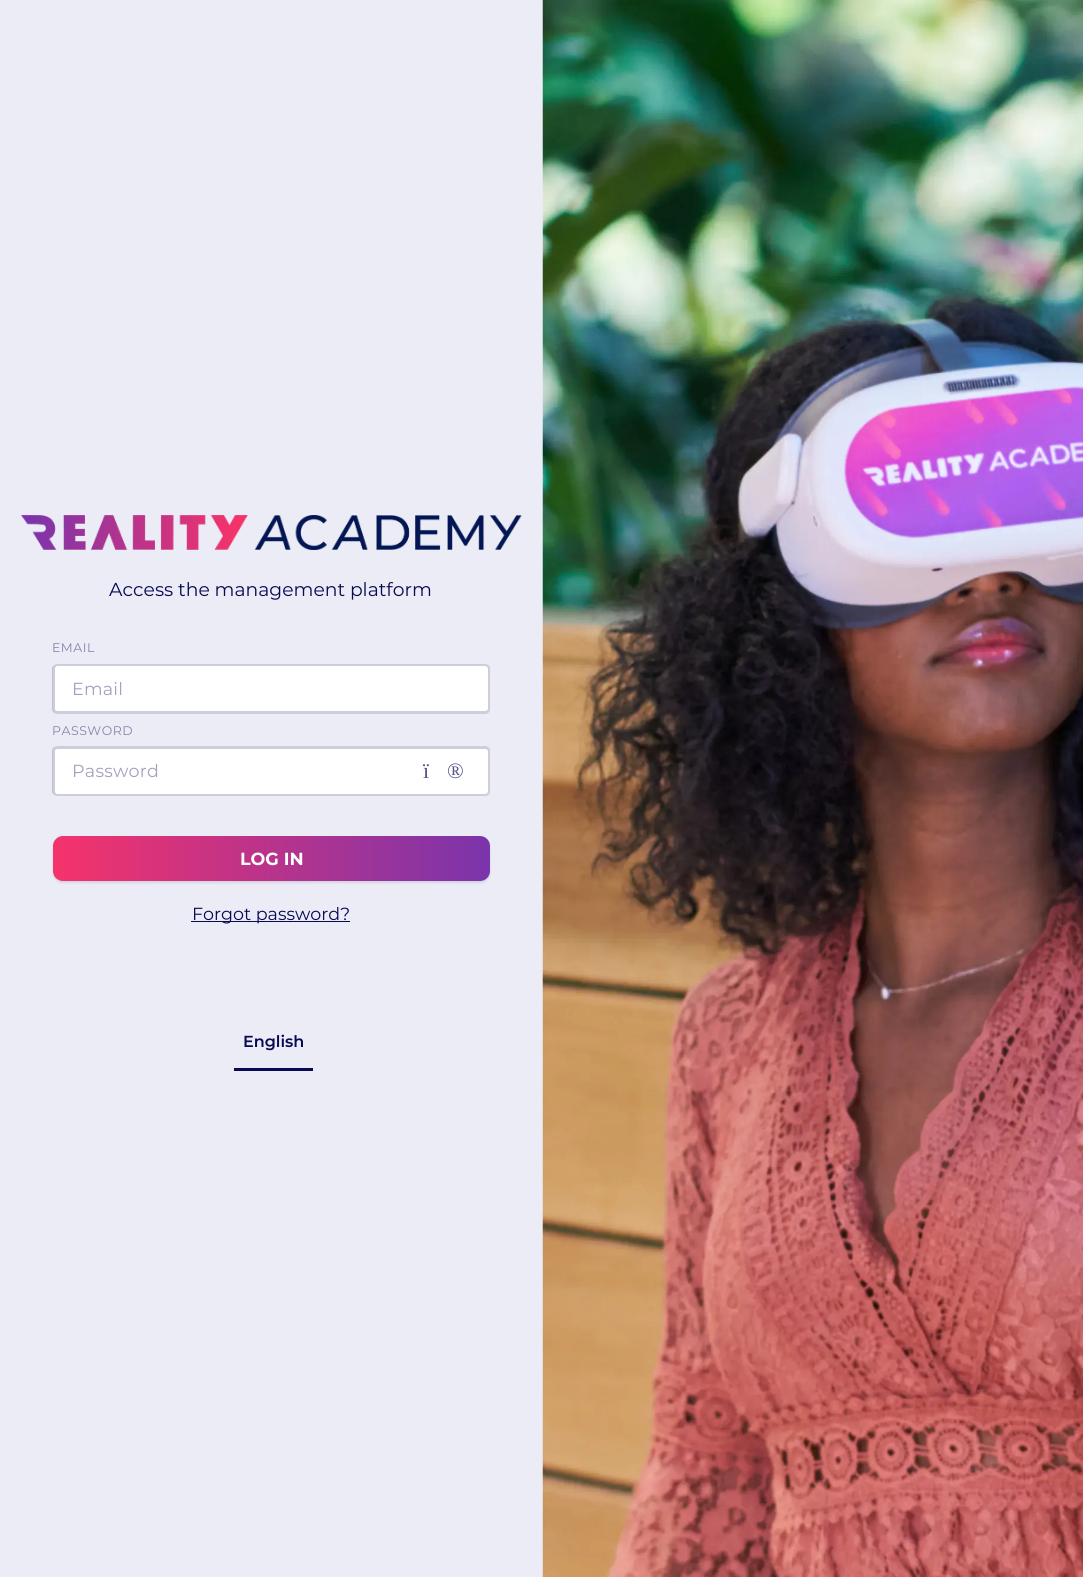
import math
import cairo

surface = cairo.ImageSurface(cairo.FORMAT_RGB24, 1083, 1577)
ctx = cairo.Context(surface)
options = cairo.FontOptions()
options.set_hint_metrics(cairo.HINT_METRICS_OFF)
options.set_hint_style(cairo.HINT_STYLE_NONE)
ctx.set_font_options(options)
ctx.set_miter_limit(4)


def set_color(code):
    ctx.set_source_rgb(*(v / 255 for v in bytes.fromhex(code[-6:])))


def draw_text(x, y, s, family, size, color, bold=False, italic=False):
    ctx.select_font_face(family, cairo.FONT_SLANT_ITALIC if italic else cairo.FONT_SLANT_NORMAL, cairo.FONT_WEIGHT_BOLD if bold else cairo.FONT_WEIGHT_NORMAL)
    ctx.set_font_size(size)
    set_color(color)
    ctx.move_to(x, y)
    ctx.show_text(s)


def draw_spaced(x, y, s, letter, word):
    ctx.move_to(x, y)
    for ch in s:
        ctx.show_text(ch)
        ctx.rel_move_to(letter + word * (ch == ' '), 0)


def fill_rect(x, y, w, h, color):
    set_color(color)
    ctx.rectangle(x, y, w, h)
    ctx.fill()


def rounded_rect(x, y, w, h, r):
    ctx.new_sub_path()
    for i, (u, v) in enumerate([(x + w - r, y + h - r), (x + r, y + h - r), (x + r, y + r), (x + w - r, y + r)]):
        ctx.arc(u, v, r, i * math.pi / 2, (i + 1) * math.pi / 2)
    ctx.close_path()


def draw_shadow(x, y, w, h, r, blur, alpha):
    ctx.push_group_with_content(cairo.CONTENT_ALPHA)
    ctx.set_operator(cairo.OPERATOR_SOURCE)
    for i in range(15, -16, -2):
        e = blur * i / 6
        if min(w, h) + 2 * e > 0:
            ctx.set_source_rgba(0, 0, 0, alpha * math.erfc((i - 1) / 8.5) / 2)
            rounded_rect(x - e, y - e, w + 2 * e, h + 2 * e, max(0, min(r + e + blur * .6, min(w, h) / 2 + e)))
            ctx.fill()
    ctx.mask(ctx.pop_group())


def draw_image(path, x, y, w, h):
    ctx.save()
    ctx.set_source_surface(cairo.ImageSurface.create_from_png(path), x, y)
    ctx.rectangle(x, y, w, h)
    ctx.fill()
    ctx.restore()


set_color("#ececf7")
ctx.paint()
draw_image("assets/img1.png", 21, 515, 501, 35)
draw_text(109, 596, "Access the management platform", "Montserrat", 18.75, "#090954")
ctx.set_font_size(12.5)
set_color("#8484aa")
draw_spaced(52, 652, "EMAIL", 0.5, 0)
set_color("#ffffff")
rounded_rect(53, 664, 437, 50, 5)
ctx.fill()
ctx.set_source_rgba(0.035, 0.035, 0.329, 0.2)
ctx.set_fill_rule(cairo.FILL_RULE_EVEN_ODD)
ctx.new_path()
ctx.move_to(58, 664)
ctx.line_to(68, 664)
ctx.line_to(68, 714)
ctx.line_to(58, 714)
ctx.curve_to(55, 714, 52, 712, 52, 709)
ctx.line_to(52, 669)
ctx.curve_to(52, 666, 55, 664, 58, 664)
ctx.close_path()
ctx.move_to(58, 666)
ctx.line_to(68, 666)
ctx.line_to(68, 711)
ctx.line_to(58, 711)
ctx.curve_to(56, 711, 55, 710, 55, 709)
ctx.line_to(55, 669)
ctx.curve_to(55, 667, 56, 666, 58, 666)
ctx.close_path()
ctx.fill()
ctx.set_font_size(17.5)
set_color("#a2a2be")
draw_spaced(72, 695, "Email", 0.25, 0)
ctx.set_source_rgba(0.035, 0.035, 0.329, 0.2)
ctx.new_path()
ctx.move_to(68, 664)
ctx.line_to(485, 664)
ctx.curve_to(488, 664, 490, 666, 490, 669)
ctx.line_to(490, 709)
ctx.curve_to(490, 712, 488, 714, 485, 714)
ctx.line_to(68, 714)
ctx.close_path()
ctx.move_to(68, 666)
ctx.line_to(485, 666)
ctx.curve_to(486, 666, 488, 667, 488, 669)
ctx.line_to(488, 709)
ctx.curve_to(488, 710, 486, 711, 485, 711)
ctx.line_to(68, 711)
ctx.close_path()
ctx.fill()
ctx.set_font_size(12.5)
set_color("#8484aa")
draw_spaced(52, 735, "PASSWORD", 0.5, 0)
set_color("#ffffff")
rounded_rect(53, 746, 437, 50, 5)
ctx.fill()
ctx.set_source_rgba(0.035, 0.035, 0.329, 0.2)
ctx.new_path()
ctx.move_to(58, 746)
ctx.line_to(68, 746)
ctx.line_to(68, 796)
ctx.line_to(58, 796)
ctx.curve_to(55, 796, 52, 794, 52, 791)
ctx.line_to(52, 751)
ctx.curve_to(52, 748, 55, 746, 58, 746)
ctx.close_path()
ctx.move_to(58, 749)
ctx.line_to(68, 749)
ctx.line_to(68, 794)
ctx.line_to(58, 794)
ctx.curve_to(56, 794, 55, 793, 55, 791)
ctx.line_to(55, 751)
ctx.curve_to(55, 750, 56, 749, 58, 749)
ctx.close_path()
ctx.fill()
ctx.set_font_size(17.5)
set_color("#a2a2be")
draw_spaced(72, 777, "Password", 0.25, 0)
draw_text(423, 778, "ï", "Liberation Serif", 22, "#535387")
draw_text(447, 778, "®", "Liberation Serif", 22, "#535387")
ctx.set_source_rgba(0.035, 0.035, 0.329, 0.2)
ctx.new_path()
ctx.move_to(68, 746)
ctx.line_to(485, 746)
ctx.curve_to(488, 746, 490, 748, 490, 751)
ctx.line_to(490, 791)
ctx.curve_to(490, 794, 488, 796, 485, 796)
ctx.line_to(68, 796)
ctx.close_path()
ctx.move_to(68, 749)
ctx.line_to(485, 749)
ctx.curve_to(486, 749, 488, 750, 488, 751)
ctx.line_to(488, 791)
ctx.curve_to(488, 793, 486, 794, 485, 794)
ctx.line_to(68, 794)
ctx.close_path()
ctx.fill()
set_color("#1b242c")
draw_shadow(53, 838, 437, 45, 10, 1, 0.12)
gradient = cairo.LinearGradient(53, 859, 490, 859)
gradient.add_color_stop_rgba(0, 0.961, 0.2, 0.42, 1)
gradient.add_color_stop_rgba(1, 0.482, 0.204, 0.671, 1)
ctx.set_source(gradient)
rounded_rect(53, 836, 437, 45, 10)
ctx.fill()
draw_text(240, 865, "LOG IN", "Montserrat", 17.5, "#ffffff", bold=True)
fill_rect(191, 921, 159, 1, "#090954")
draw_text(192, 920, "Forgot password?", "Montserrat", 17.5, "#090954")
draw_text(243, 1047, "English", "Montserrat SemiBold", 16, "#090954")
fill_rect(234, 1068, 79, 3, "#090954")
draw_image("assets/img2.png", 542, 0, 541, 1577)
surface.write_to_png("output.png")
